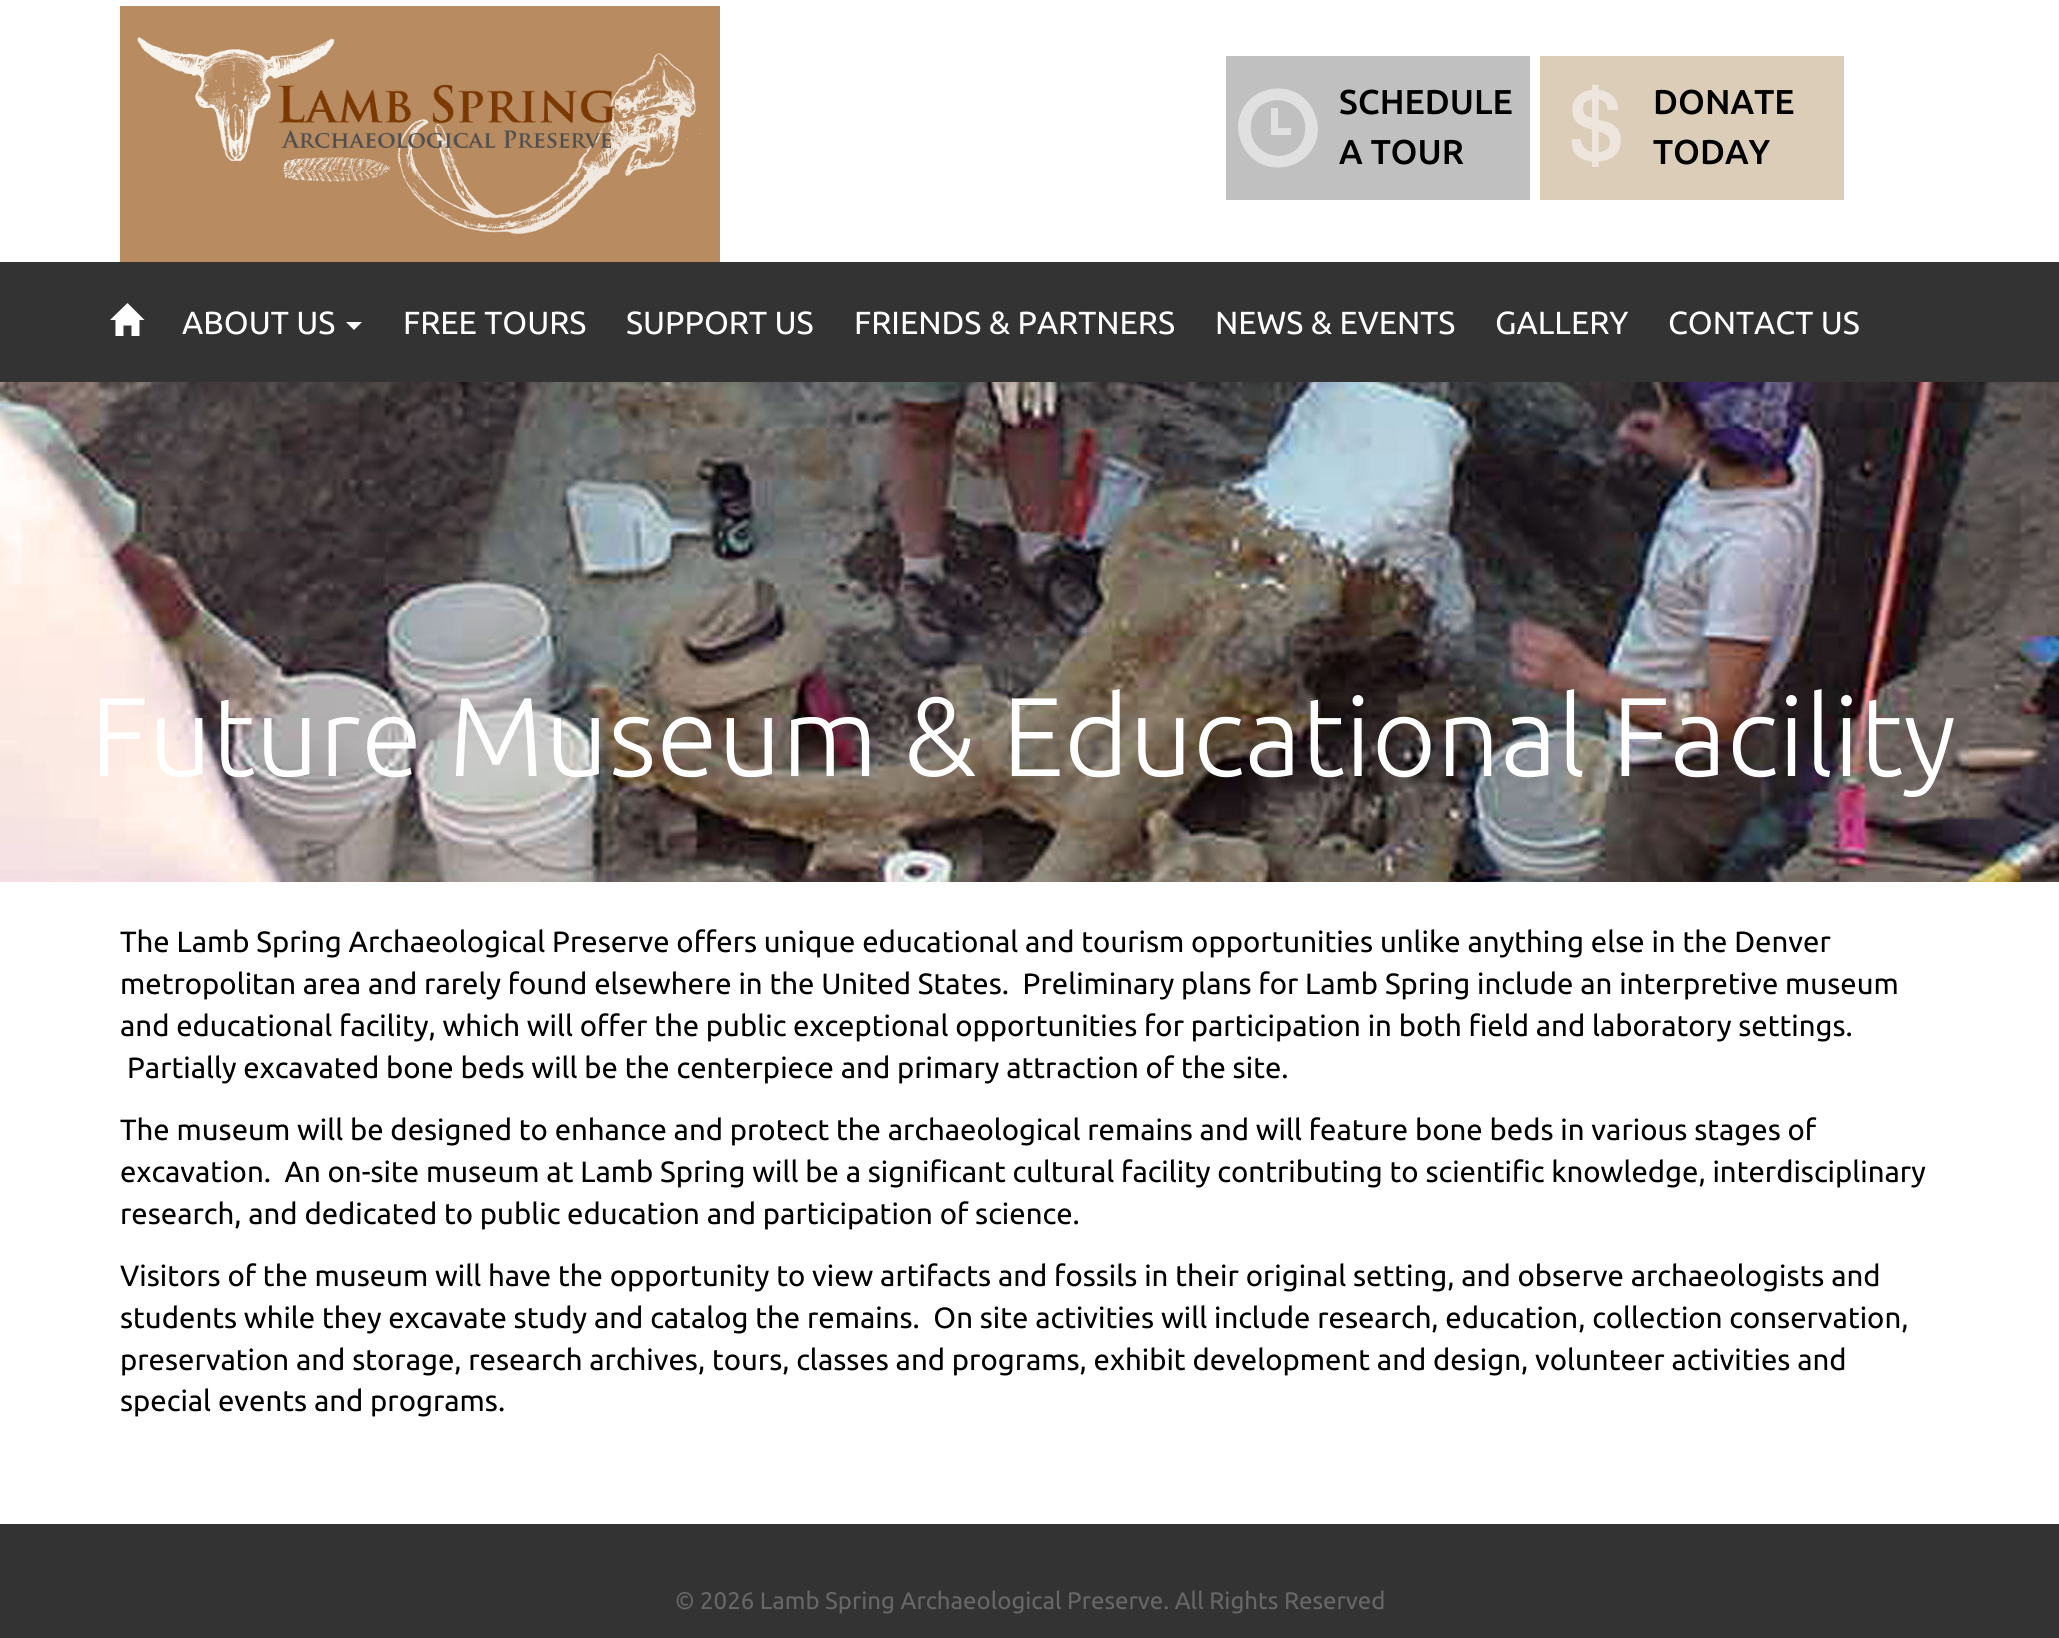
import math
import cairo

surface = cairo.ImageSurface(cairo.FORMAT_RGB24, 2059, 1638)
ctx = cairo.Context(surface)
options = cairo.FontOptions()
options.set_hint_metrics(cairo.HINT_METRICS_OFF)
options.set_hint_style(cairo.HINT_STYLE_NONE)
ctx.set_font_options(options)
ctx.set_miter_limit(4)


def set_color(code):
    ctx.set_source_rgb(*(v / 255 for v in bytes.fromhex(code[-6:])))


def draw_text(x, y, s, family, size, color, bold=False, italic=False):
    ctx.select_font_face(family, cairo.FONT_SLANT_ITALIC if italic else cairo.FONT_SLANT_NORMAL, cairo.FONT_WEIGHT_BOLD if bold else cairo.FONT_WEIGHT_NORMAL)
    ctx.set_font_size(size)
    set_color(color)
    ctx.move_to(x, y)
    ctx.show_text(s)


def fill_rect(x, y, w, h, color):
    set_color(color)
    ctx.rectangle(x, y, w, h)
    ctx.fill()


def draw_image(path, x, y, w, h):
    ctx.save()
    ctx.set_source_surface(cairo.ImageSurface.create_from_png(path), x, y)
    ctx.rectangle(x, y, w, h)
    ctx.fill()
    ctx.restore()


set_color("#ffffff")
ctx.paint()
draw_image("assets/img1.png", 120, 6, 600, 256)
fill_rect(1226, 56, 304, 144, "#c0c0c1")
set_color("#e0e0e0")
ctx.new_path()
ctx.move_to(1244, 148)
ctx.curve_to(1240, 141, 1238, 133, 1238, 125)
ctx.curve_to(1241, 86, 1293, 75, 1312, 108)
ctx.curve_to(1316, 115, 1318, 123, 1318, 131)
ctx.curve_to(1315, 170, 1263, 181, 1244, 148)
ctx.close_path()
ctx.move_to(1258, 108)
ctx.curve_to(1254, 113, 1251, 119, 1251, 125)
ctx.curve_to(1248, 151, 1279, 166, 1298, 148)
ctx.curve_to(1302, 143, 1305, 137, 1305, 131)
ctx.curve_to(1308, 105, 1277, 90, 1258, 108)
ctx.close_path()
ctx.move_to(1271, 135)
ctx.line_to(1271, 108)
ctx.line_to(1278, 108)
ctx.line_to(1278, 128)
ctx.line_to(1291, 128)
ctx.line_to(1291, 135)
ctx.close_path()
ctx.fill()
draw_text(1339, 114, "SCHEDULE", "Ubuntu Medium", 34.5, "#000000")
draw_text(1339, 164, "A TOUR", "Ubuntu Medium", 34.5, "#000000")
fill_rect(1540, 56, 304, 144, "#dccdb9")
draw_image("assets/img2.png", 1571, 84, 50, 83)
draw_text(1653, 114, "DONATE", "Ubuntu Medium", 34.5, "#000000")
draw_text(1653, 164, "TODAY", "Ubuntu Medium", 34.5, "#000000")
fill_rect(0, 262, 2059, 120, "#333333")
set_color("#ffffff")
ctx.new_path()
ctx.move_to(110, 320)
ctx.line_to(127.5, 303)
ctx.line_to(144.5, 320)
ctx.line_to(139.5, 320)
ctx.line_to(139.5, 336)
ctx.line_to(131.5, 336)
ctx.line_to(131.5, 325.5)
ctx.line_to(123.5, 325.5)
ctx.line_to(123.5, 336)
ctx.line_to(115.5, 336)
ctx.line_to(115.5, 320)
ctx.close_path()
ctx.fill()
draw_text(182, 334, "ABOUT US", "Ubuntu", 32, "#ffffff")
ctx.new_path()
ctx.move_to(346, 322)
ctx.line_to(362, 322)
ctx.line_to(354, 330)
ctx.close_path()
ctx.fill()
draw_text(403, 334, "FREE TOURS", "Ubuntu", 32, "#ffffff")
draw_text(626, 334, "SUPPORT US", "Ubuntu", 32, "#ffffff")
draw_text(854, 334, "FRIENDS & PARTNERS", "Ubuntu", 32, "#ffffff")
draw_text(1215, 334, "NEWS & EVENTS", "Ubuntu", 32, "#ffffff")
draw_text(1495, 334, "GALLERY", "Ubuntu", 32, "#ffffff")
draw_text(1668, 334, "CONTACT US", "Ubuntu", 32, "#ffffff")
draw_image("assets/img3.png", 0, 382, 2059, 500)
draw_text(90, 776, "Future Museum & Educational Facility", "Ubuntu Light", 112, "#ffffff")
draw_text(120, 952, "The Lamb Spring Archaeological Preserve offers unique educational and tourism opportunities unlike anything else in the Denver", "Ubuntu", 29.33, "#000000")
draw_text(120, 994, "metropolitan area and rarely found elsewhere in the United States.  Preliminary plans for Lamb Spring include an interpretive museum", "Ubuntu", 29.33, "#000000")
draw_text(120, 1036, "and educational facility, which will offer the public exceptional opportunities for participation in both field and laboratory settings.", "Ubuntu", 29.33, "#000000")
draw_text(127, 1078, "Partially excavated bone beds will be the centerpiece and primary attraction of the site.", "Ubuntu", 29.33, "#000000")
draw_text(120, 1140, "The museum will be designed to enhance and protect the archaeological remains and will feature bone beds in various stages of", "Ubuntu", 29.33, "#000000")
draw_text(120, 1182, "excavation.  An on-site museum at Lamb Spring will be a significant cultural facility contributing to scientific knowledge, interdisciplinary", "Ubuntu", 29.33, "#000000")
draw_text(120, 1224, "research, and dedicated to public education and participation of science.", "Ubuntu", 29.33, "#000000")
draw_text(120, 1286, "Visitors of the museum will have the opportunity to view artifacts and fossils in their original setting, and observe archaeologists and", "Ubuntu", 29.33, "#000000")
draw_text(120, 1328, "students while they excavate study and catalog the remains.  On site activities will include research, education, collection conservation,", "Ubuntu", 29.33, "#000000")
draw_text(120, 1370, "preservation and storage, research archives, tours, classes and programs, exhibit development and design, volunteer activities and", "Ubuntu", 29.33, "#000000")
draw_text(120, 1411, "special events and programs.", "Ubuntu", 29.33, "#000000")
fill_rect(0, 1524, 2059, 114, "#333333")
draw_text(675, 1609, "© 2026 Lamb Spring Archaeological Preserve. All Rights Reserved", "Ubuntu", 24, "#676767")
surface.write_to_png("output.png")
